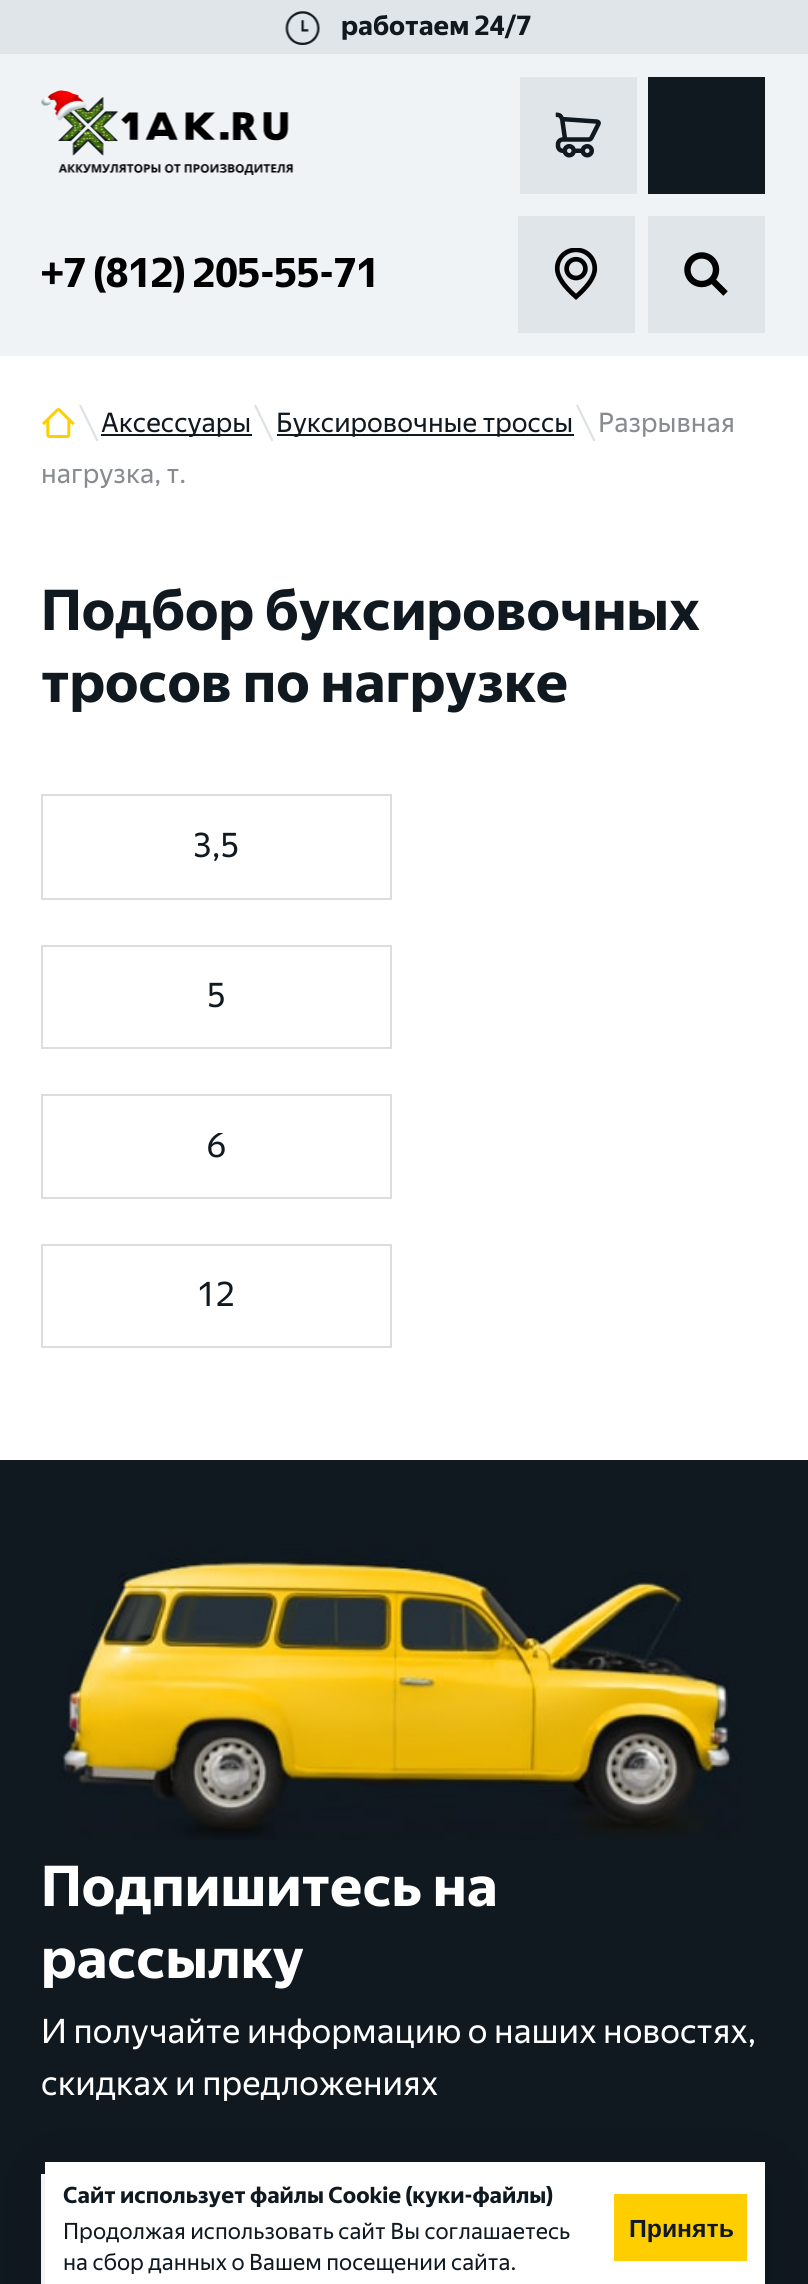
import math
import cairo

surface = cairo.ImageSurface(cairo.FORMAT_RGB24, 808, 2284)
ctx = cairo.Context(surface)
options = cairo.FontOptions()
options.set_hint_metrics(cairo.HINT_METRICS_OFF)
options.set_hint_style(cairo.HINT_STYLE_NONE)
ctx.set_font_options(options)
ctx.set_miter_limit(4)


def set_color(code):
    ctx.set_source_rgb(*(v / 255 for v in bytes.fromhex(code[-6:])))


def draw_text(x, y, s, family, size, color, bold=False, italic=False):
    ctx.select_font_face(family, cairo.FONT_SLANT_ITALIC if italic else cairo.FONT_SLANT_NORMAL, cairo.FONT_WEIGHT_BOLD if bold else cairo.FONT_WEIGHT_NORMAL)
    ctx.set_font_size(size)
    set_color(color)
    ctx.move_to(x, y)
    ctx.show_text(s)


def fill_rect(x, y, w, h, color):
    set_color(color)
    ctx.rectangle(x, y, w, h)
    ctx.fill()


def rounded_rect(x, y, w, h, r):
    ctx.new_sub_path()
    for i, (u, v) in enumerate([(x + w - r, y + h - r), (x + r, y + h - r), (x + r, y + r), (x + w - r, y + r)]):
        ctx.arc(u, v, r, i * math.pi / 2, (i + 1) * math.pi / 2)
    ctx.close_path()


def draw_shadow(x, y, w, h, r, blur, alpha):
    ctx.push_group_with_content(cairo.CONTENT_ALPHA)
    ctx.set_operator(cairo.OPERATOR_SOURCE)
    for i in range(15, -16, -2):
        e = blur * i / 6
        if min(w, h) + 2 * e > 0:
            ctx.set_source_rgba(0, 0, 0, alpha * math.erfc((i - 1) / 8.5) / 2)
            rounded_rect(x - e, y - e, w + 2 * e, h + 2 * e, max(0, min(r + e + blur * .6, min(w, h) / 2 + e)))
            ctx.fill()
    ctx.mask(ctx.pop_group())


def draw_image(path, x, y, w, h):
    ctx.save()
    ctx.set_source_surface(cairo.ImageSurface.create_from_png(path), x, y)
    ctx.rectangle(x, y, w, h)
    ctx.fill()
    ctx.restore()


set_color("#ffffff")
ctx.paint()
fill_rect(0, 54, 808, 302, "#f0f3f6")
fill_rect(0, 0, 808, 54, "#dfe5e9")
draw_image("assets/img1.png", 285, 11, 35, 34)
draw_text(341, 35, "работаем 24/7", "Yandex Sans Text", 27, "#101820", bold=True)
draw_image("assets/img2.png", 41, 90, 253, 85)
fill_rect(520, 77, 117, 117, "#dfe5e9")
draw_image("assets/img3.png", 555, 112, 46, 46)
fill_rect(648, 77, 117, 117, "#101820")
draw_text(41, 287, "+7 (812) 205-55-71", "Yandex Sans Text", 40.5, "#000000", bold=True)
fill_rect(518, 216, 117, 117, "#dfe5e9")
draw_image("assets/img4.png", 554, 248, 44, 52)
fill_rect(648, 216, 117, 117, "#dfe5e9")
draw_image("assets/img5.png", 684, 252, 44, 44)
draw_image("assets/img6.png", 42, 408, 33, 30)
set_color("#dde2e5")
ctx.new_path()
ctx.move_to(79, 405.5)
ctx.line_to(81, 404.5)
ctx.line_to(98.5, 440.5)
ctx.line_to(96.5, 441.5)
ctx.close_path()
ctx.fill()
fill_rect(101, 434, 151, 2, "#101820")
draw_text(101, 432, "Аксессуары", "Yandex Sans Text", 27, "#101820")
set_color("#dde2e5")
ctx.new_path()
ctx.move_to(254, 405.5)
ctx.line_to(256, 404.5)
ctx.line_to(273.5, 440.5)
ctx.line_to(271.5, 441.5)
ctx.close_path()
ctx.fill()
fill_rect(277, 434, 297, 2, "#101820")
draw_text(276, 432, "Буксировочные троссы", "Yandex Sans Text", 27, "#101820")
set_color("#dde2e5")
ctx.new_path()
ctx.move_to(576, 405.5)
ctx.line_to(578, 404.5)
ctx.line_to(595.5, 440.5)
ctx.line_to(593.5, 441.5)
ctx.close_path()
ctx.fill()
draw_text(598, 432, "Разрывная", "Yandex Sans Text", 27, "#888c90")
draw_text(41, 483, "нагрузка, т.", "Yandex Sans Text", 27, "#888c90")
draw_text(41, 630, "Подбор буксировочных", "Yandex Sans Text", 56.25, "#101820", bold=True)
draw_text(41, 702, "тросов по нагрузке", "Yandex Sans Text", 56.25, "#101820", bold=True)
ctx.rectangle(42, 795, 349, 104)
set_color("#dddddd")
ctx.stroke()
draw_text(193, 857, "3,5", "Yandex Sans Text", 33.75, "#101820")
ctx.rectangle(42, 946, 349, 102)
set_color("#dddddd")
ctx.stroke()
draw_text(207, 1007, "5", "Yandex Sans Text", 33.75, "#101820")
ctx.rectangle(42, 1095, 349, 103)
set_color("#dddddd")
ctx.stroke()
draw_text(207, 1157, "6", "Yandex Sans Text", 33.75, "#101820")
ctx.rectangle(42, 1245, 349, 102)
set_color("#dddddd")
ctx.stroke()
draw_text(197, 1306, "12", "Yandex Sans Text", 33.75, "#101820")
fill_rect(0, 1460, 808, 824, "#101820")
draw_image("assets/img7.png", 58, 1546, 684, 294)
draw_text(41, 1906, "Подпишитесь на", "Yandex Sans Text", 56.25, "#ffffff", bold=True)
draw_text(41, 1978, "рассылку", "Yandex Sans Text", 56.25, "#ffffff", bold=True)
draw_text(41, 2043, "И получайте информацию о наших новостях,", "Yandex Sans Text", 33.75, "#ffffff")
draw_text(41, 2095, "скидках и предложениях", "Yandex Sans Text", 33.75, "#ffffff")
fill_rect(41, 2174, 4, 110, "#ffffff")
set_color("#000000")
draw_shadow(45, 2171, 720, 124, 0, 36, 0.1)
fill_rect(45, 2162, 720, 122, "#ffffff")
draw_text(63, 2203, "Сайт использует файлы Cookie (куки-файлы)", "Yandex Sans Text", 22.5, "#101820", bold=True)
draw_text(63, 2239, "Продолжая использовать сайт Вы соглашаетесь", "Yandex Sans Text", 22.5, "#101820")
draw_text(63, 2270, "на сбор данных о Вашем посещении сайта.", "Yandex Sans Text", 22.5, "#101820")
fill_rect(614, 2194, 133, 67, "#ffce00")
draw_text(629, 2237, "Принять", "Liberation Sans", 24.75, "#101820", bold=True)
surface.write_to_png("output.png")
